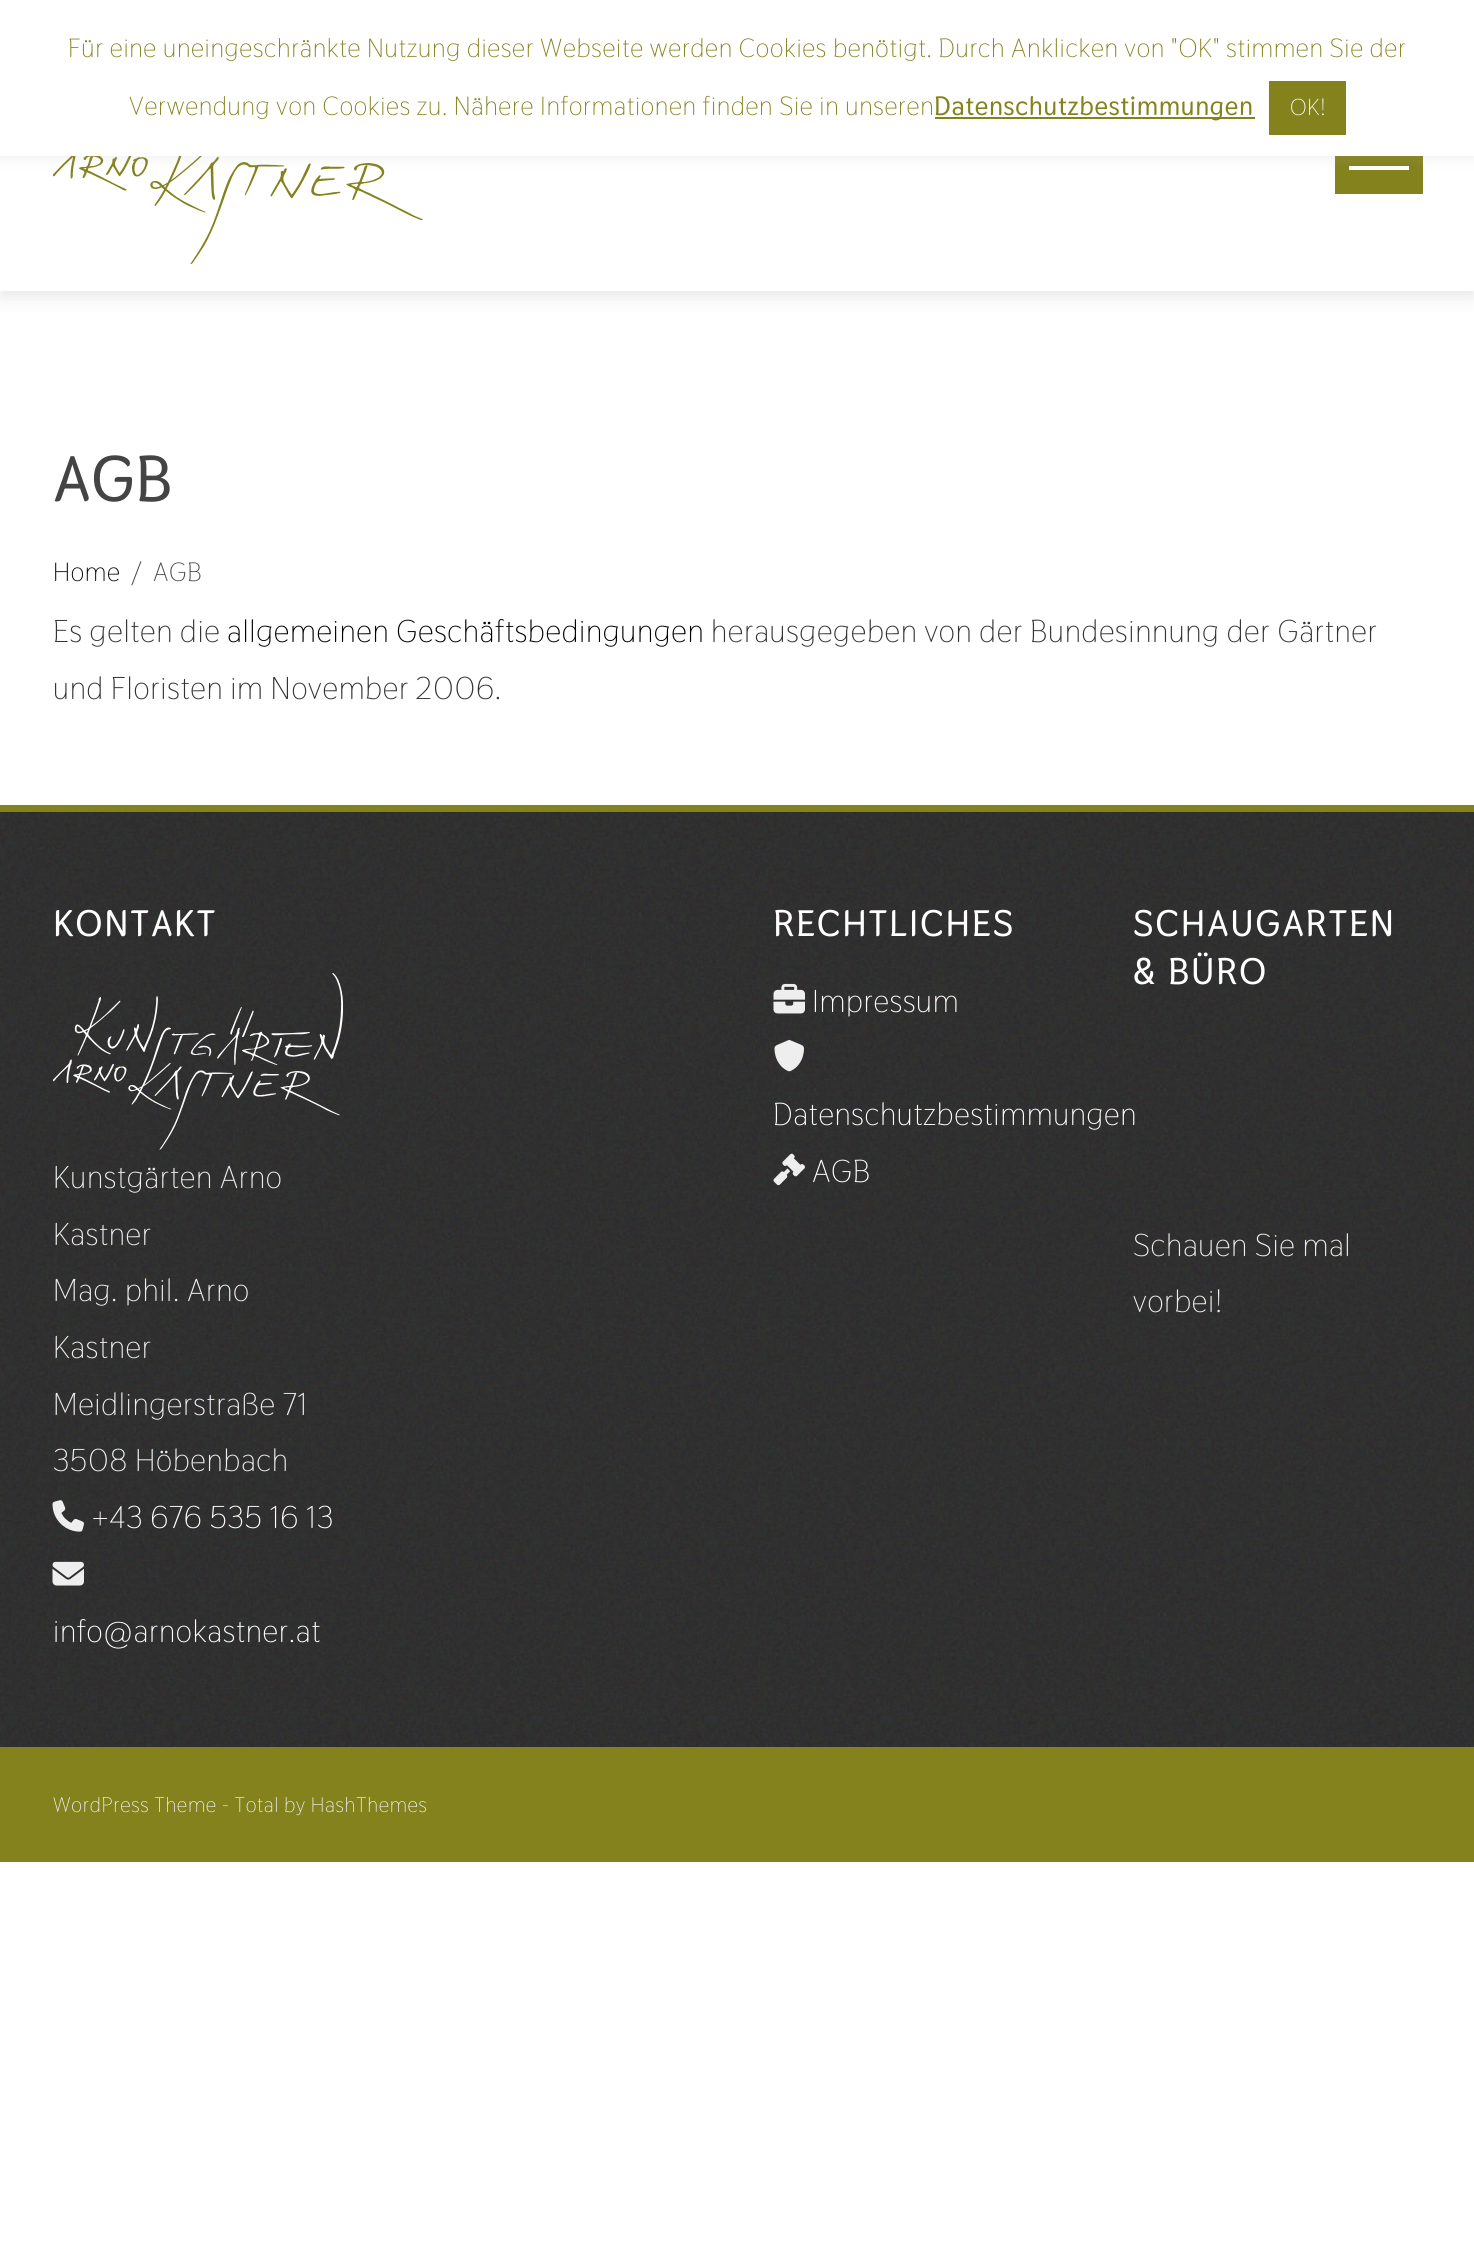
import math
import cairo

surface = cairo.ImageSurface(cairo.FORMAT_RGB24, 1474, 2265)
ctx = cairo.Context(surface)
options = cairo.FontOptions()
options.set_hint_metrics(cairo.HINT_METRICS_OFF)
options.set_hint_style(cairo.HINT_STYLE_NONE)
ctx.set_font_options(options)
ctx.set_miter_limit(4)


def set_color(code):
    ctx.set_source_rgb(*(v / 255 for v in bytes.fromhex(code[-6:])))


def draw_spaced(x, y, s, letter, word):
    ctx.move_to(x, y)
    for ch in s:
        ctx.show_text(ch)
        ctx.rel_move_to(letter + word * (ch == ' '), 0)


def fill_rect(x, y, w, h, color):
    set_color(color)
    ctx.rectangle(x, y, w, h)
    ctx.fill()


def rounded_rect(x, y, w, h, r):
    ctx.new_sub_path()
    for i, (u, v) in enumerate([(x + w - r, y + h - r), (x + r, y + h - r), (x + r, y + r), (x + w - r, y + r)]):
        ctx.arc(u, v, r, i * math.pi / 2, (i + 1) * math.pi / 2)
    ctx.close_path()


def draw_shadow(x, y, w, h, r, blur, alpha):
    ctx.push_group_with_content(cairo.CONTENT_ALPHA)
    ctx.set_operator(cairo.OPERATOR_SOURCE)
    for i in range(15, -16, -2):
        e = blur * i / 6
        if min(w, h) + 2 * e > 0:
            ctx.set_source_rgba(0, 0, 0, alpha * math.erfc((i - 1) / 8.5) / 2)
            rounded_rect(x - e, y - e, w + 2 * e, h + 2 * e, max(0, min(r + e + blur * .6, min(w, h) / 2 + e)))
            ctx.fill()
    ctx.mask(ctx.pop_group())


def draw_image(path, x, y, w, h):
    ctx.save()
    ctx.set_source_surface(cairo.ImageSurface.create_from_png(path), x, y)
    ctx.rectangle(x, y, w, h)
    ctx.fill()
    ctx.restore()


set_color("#ffffff")
ctx.paint()
set_color("#000000")
draw_shadow(0, 9, 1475, 287, 0, 9, 0.1)
fill_rect(0, 156, 1474, 135, "#ffffff")
draw_image("assets/img1.png", 53, 156, 370, 108)
fill_rect(1335, 156, 88, 38, "#84821c")
fill_rect(1349, 166, 60, 4, "#ffffff")
set_color("#acabab")
draw_shadow(0, -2, 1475, 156, 0, 9, 0.3)
fill_rect(0, 0, 1474, 156, "#ffffff")
ctx.select_font_face("Thasadith")
ctx.set_font_size(26.25)
set_color("#84821c")
draw_spaced(68, 57, "Für eine uneingeschränkte Nutzung dieser Webseite werden Cookies benötigt. Durch Anklicken von \"OK\" stimmen Sie der", 0.7, 0)
draw_spaced(129, 115, "Verwendung von Cookies zu. Nähere Informationen finden Sie in unseren", 0.7, 0)
fill_rect(935, 117, 320, 2, "#84821c")
ctx.select_font_face("Thasadith", cairo.FONT_SLANT_NORMAL, cairo.FONT_WEIGHT_BOLD)
draw_spaced(934, 115, "Datenschutzbestimmungen", 0.7, 0)
fill_rect(1269, 81, 77, 54, "#84821c")
ctx.select_font_face("Thasadith")
ctx.set_font_size(23)
set_color("#ffffff")
draw_spaced(1290, 115, "OK!", 0.7, 0)
ctx.select_font_face("Thasadith", cairo.FONT_SLANT_NORMAL, cairo.FONT_WEIGHT_BOLD)
ctx.set_font_size(64)
set_color("#444444")
draw_spaced(53, 501, "AGB", 0.5, 0)
ctx.select_font_face("Thasadith")
ctx.set_font_size(26.25)
set_color("#000000")
draw_spaced(53, 581, "Home", 0.7, 0)
set_color("#444444")
draw_spaced(131, 581, "/", 0.7, 0)
draw_spaced(153, 581, "AGB", 0.7, 0)
ctx.set_font_size(31.5)
set_color("#333333")
draw_spaced(53, 642, "Es gelten die", 0.7, 0)
set_color("#000000")
draw_spaced(227, 642, "allgemeinen Geschäftsbedingungen", 0.7, 0)
set_color("#333333")
draw_spaced(711, 642, "herausgegeben von der Bundesinnung der Gärtner", 0.7, 0)
draw_spaced(53, 699, "und Floristen im November 2006.", 0.7, 0)
draw_image("assets/img2.png", 0, 812, 1474, 935)
fill_rect(0, 805, 1474, 7, "#84821c")
ctx.select_font_face("Thasadith", cairo.FONT_SLANT_NORMAL, cairo.FONT_WEIGHT_BOLD)
ctx.set_font_size(36.75)
set_color("#ffffff")
draw_spaced(53, 936, "KONTAKT", 1.75, 0)
draw_image("assets/img3.png", 53, 973, 290, 177)
ctx.select_font_face("Thasadith")
ctx.set_font_size(31.5)
set_color("#eeeeee")
draw_spaced(53, 1188, "Kunstgärten Arno", 0.7, 0)
draw_spaced(53, 1245, "Kastner", 0.7, 0)
draw_spaced(53, 1301, "Mag. phil. Arno", 0.7, 0)
draw_spaced(53, 1358, "Kastner", 0.7, 0)
draw_spaced(53, 1415, "Meidlingerstraße 71", 0.7, 0)
draw_spaced(53, 1471, "3508 Höbenbach", 0.7, 0)
draw_image("assets/img4.png", 52, 1500, 32, 32)
set_color("#ffffff")
draw_spaced(92, 1528, "+43 676 535 16 13", 0.7, 0)
draw_image("assets/img5.png", 52, 1561, 32, 25)
draw_spaced(53, 1642, "info@arnokastner.at", 0.7, 0)
ctx.select_font_face("Thasadith", cairo.FONT_SLANT_NORMAL, cairo.FONT_WEIGHT_BOLD)
ctx.set_font_size(36.75)
draw_spaced(773, 936, "RECHTLICHES", 1.75, 0)
draw_image("assets/img6.png", 773, 983, 32, 31)
ctx.select_font_face("Thasadith")
ctx.set_font_size(31.5)
draw_spaced(812, 1012, "Impressum", 0.7, 0)
draw_image("assets/img7.png", 774, 1040, 30, 32)
draw_spaced(773, 1125, "Datenschutzbestimmungen", 0.7, 0)
draw_image("assets/img8.png", 773, 1153, 32, 33)
draw_spaced(812, 1182, "AGB", 0.7, 0)
ctx.select_font_face("Thasadith", cairo.FONT_SLANT_NORMAL, cairo.FONT_WEIGHT_BOLD)
ctx.set_font_size(36.75)
draw_spaced(1133, 936, "SCHAUGARTEN", 1.75, 0)
draw_spaced(1133, 984, "& BÜRO", 1.75, 0)
ctx.select_font_face("Thasadith")
ctx.set_font_size(31.5)
set_color("#eeeeee")
draw_spaced(1133, 1256, "Schauen Sie mal", 0.7, 0)
draw_spaced(1133, 1312, "vorbei!", 0.7, 0)
fill_rect(0, 1747, 1474, 115, "#84821c")
ctx.set_font_size(21)
set_color("#eeeeee")
draw_spaced(53, 1812, "WordPress Theme - Total by HashThemes", 0.7, 0)
surface.write_to_png("output.png")
